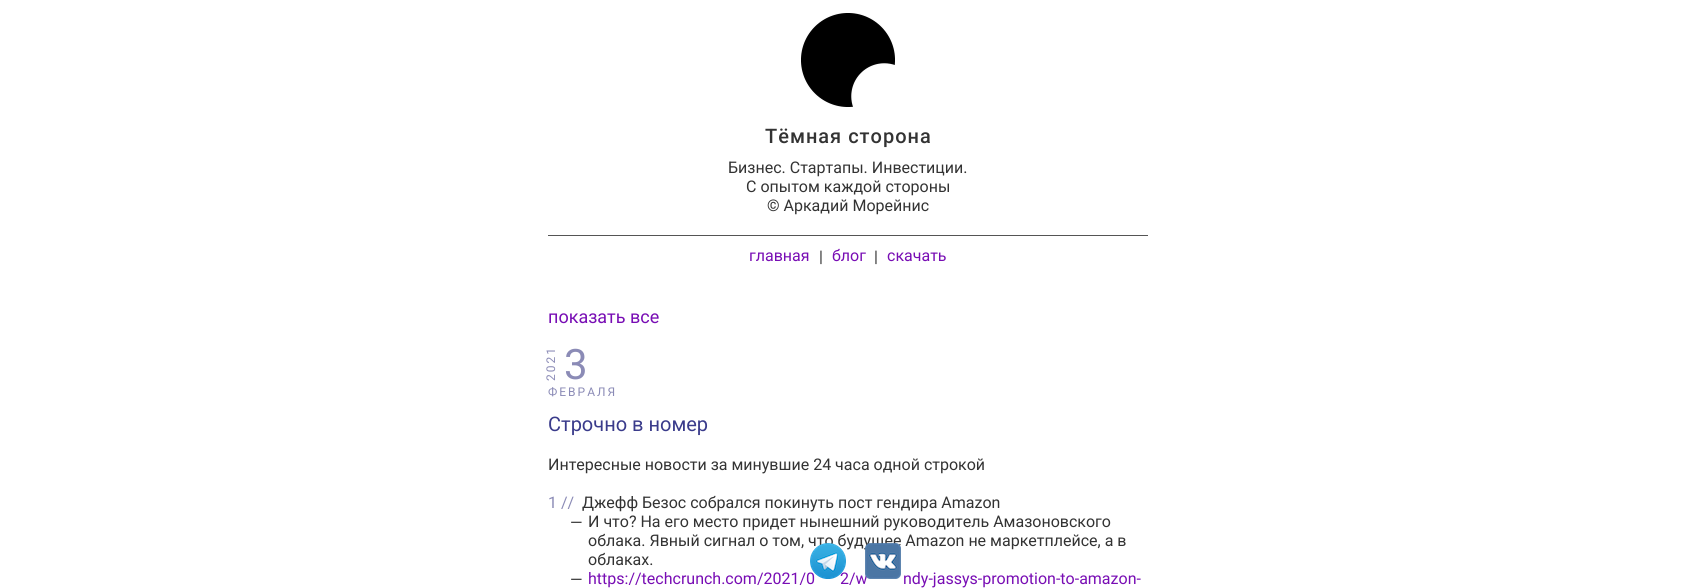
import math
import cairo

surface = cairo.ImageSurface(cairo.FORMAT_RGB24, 1696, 588)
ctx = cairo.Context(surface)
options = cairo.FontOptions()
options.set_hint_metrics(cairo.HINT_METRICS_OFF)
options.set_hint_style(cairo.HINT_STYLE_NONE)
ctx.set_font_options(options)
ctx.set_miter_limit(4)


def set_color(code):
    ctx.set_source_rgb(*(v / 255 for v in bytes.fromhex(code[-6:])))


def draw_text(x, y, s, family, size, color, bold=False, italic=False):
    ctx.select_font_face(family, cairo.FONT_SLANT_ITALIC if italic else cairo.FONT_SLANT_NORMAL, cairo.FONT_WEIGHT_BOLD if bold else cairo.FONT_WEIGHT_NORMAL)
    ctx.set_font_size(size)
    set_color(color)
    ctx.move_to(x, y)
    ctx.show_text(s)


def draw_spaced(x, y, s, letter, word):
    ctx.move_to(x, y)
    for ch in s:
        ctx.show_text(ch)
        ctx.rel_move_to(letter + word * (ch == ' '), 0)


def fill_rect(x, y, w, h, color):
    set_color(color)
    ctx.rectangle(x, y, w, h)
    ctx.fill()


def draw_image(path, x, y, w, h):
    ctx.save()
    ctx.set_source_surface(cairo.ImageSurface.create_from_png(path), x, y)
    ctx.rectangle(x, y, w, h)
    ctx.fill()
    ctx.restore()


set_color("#ffffff")
ctx.paint()
draw_image("assets/img1.png", 801, 13, 94, 94)
ctx.select_font_face("Roboto Medium")
ctx.set_font_size(20)
set_color("#333333")
draw_spaced(765, 143, "Тёмная сторона", 1, 0)
draw_text(728, 173, "Бизнес. Стартапы. Инвестиции.", "Roboto", 16, "#333333")
draw_text(746, 192, "С опытом каждой стороны", "Roboto", 16, "#333333")
draw_text(767, 211, "© Аркадий Морейнис", "Roboto", 16, "#333333")
fill_rect(548, 235, 600, 1, "#555555")
draw_text(749, 261, "главная", "Roboto", 16, "#780db4")
draw_text(819, 262, "|", "Roboto", 16, "#333333")
draw_text(832, 261, "блог", "Roboto", 16, "#780db4")
draw_text(874, 262, "|", "Roboto", 16, "#333333")
draw_text(887, 261, "скачать", "Roboto", 16, "#780db4")
draw_text(548, 323, "показать все", "Roboto", 18, "#780db4")
ctx.set_font_size(12)
set_color("#8b8bb6")
ctx.save()
ctx.translate(555, 381)
ctx.rotate(-90 * math.pi / 180)
draw_spaced(0, 0, "2021", 2, 0)
ctx.restore()
draw_text(564, 379, "3", "Roboto", 42, "#8b8bb6")
ctx.set_font_size(12)
draw_spaced(548, 396, "ФЕВРАЛЯ", 2, 0)
draw_text(548, 431, "Строчно в номер", "Roboto", 20, "#3a3b8b")
draw_text(548, 470, "Интересные новости за минувшие 24 часа одной строкой", "Roboto", 16, "#333333")
draw_text(548, 508, "1 //", "Roboto", 16, "#8b8bb6")
draw_text(582, 508, "Джефф Безос собрался покинуть пост гендира Amazon", "Roboto", 16, "#333333")
draw_text(570, 528, "—", "Roboto", 16, "#333333")
draw_text(588, 527, "И что? На его место придет нынешний руководитель Амазоновского", "Roboto", 16, "#333333")
draw_text(588, 546, "облака. Явный сигнал о том, что будущее Amazon не маркетплейсе, а в", "Roboto", 16, "#333333")
draw_text(588, 565, "облаках.", "Roboto", 16, "#333333")
draw_text(570, 585, "—", "Roboto", 16, "#333333")
draw_text(588, 584, "https://techcrunch.com/2021/0", "Roboto", 16, "#780db4")
draw_text(840, 584, "2/w", "Roboto", 16, "#780db4")
draw_text(903, 584, "ndy-jassys-promotion-to-amazon-", "Roboto", 16, "#780db4")
draw_image("assets/img2.png", 810, 543, 36, 36)
draw_image("assets/img3.png", 865, 543, 36, 36)
surface.write_to_png("output.png")
